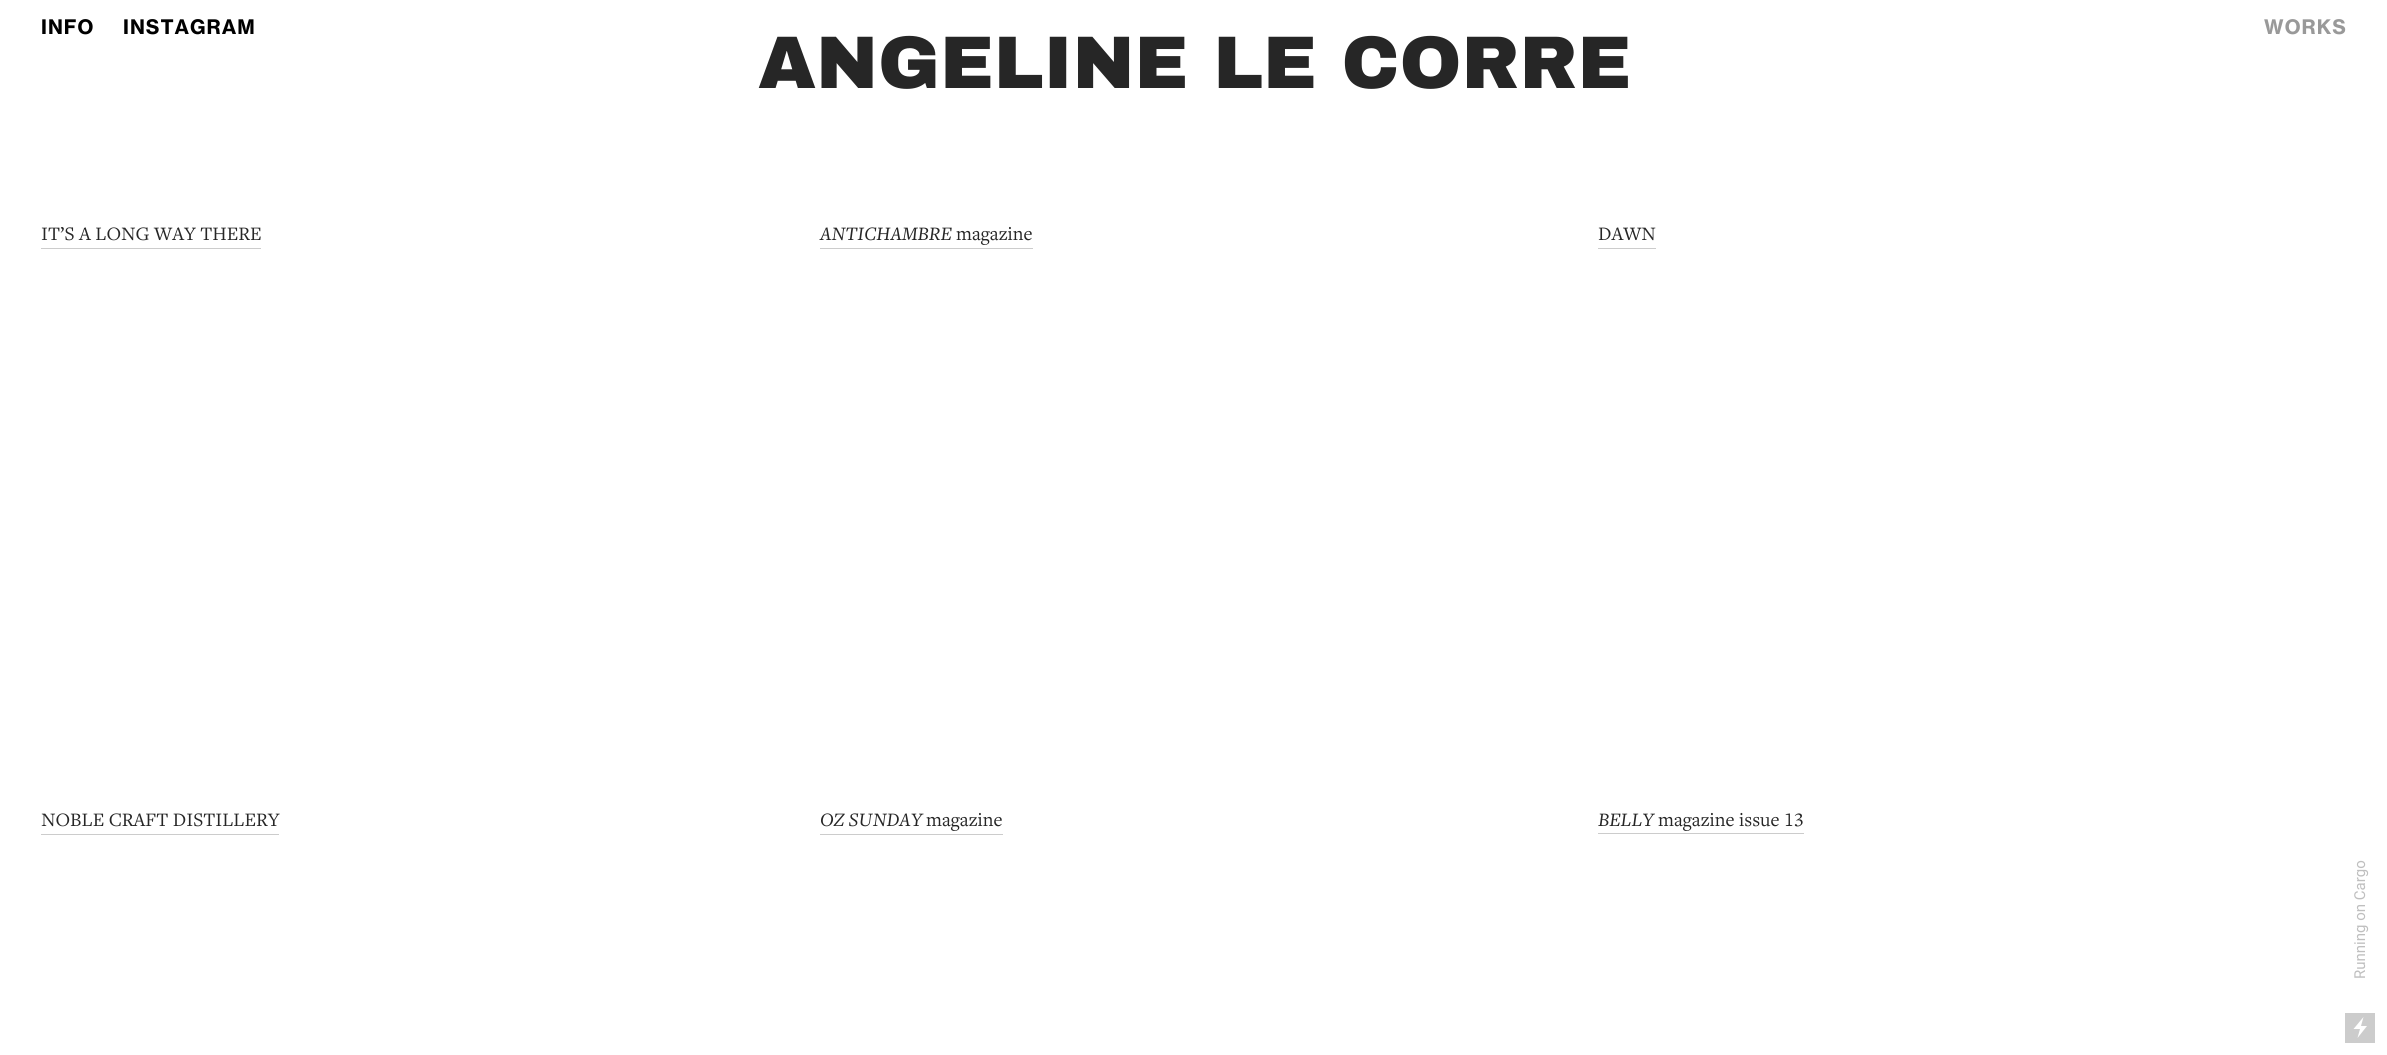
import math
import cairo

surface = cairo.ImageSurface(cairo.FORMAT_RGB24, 2387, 1055)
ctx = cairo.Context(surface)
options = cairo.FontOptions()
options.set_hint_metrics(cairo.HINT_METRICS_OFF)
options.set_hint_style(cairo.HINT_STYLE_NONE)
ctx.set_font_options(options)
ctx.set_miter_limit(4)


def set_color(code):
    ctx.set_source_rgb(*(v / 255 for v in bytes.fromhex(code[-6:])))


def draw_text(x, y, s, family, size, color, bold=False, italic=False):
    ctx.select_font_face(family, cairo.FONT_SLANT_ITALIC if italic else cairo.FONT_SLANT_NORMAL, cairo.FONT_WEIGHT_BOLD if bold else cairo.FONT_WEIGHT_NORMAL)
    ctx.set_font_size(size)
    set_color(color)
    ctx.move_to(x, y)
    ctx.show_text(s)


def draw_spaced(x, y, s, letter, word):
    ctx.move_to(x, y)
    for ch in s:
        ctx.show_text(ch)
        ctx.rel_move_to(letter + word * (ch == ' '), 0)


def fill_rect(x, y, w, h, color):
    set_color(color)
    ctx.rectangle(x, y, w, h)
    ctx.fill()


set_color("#ffffff")
ctx.paint()
ctx.select_font_face("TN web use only", cairo.FONT_SLANT_NORMAL, cairo.FONT_WEIGHT_BOLD)
ctx.set_font_size(19.75)
set_color("#000000")
draw_spaced(41, 34, "INFO", 1, 0)
draw_spaced(123, 34, "INSTAGRAM", 1, 0)
set_color("#999999")
draw_spaced(2264, 34, "WORKS", 1, 0)
draw_text(758, 88, "ANGELINE LE CORRE", "Archivo Black Black", 74.5, "#262626")
draw_text(41, 240, "IT’S A LONG WAY THERE", "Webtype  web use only", 19.75, "#262626")
fill_rect(41, 248, 220, 1, "#cccccc")
draw_text(41, 826, "NOBLE CRAFT DISTILLERY", "Webtype  web use only", 19.75, "#262626")
fill_rect(41, 834, 238, 1, "#cccccc")
draw_text(820, 240, "ANTICHAMBRE", "Webtype  web use only", 19.75, "#262626", italic=True)
draw_text(956, 240, "magazine", "Webtype  web use only", 19.75, "#262626")
fill_rect(820, 248, 213, 1, "#cccccc")
draw_text(820, 826, "OZ SUNDAY", "Webtype  web use only", 19.75, "#262626", italic=True)
draw_text(926, 826, "magazine", "Webtype  web use only", 19.75, "#262626")
fill_rect(820, 834, 183, 1, "#cccccc")
draw_text(1598, 240, "DAWN", "Webtype  web use only", 19.75, "#262626")
fill_rect(1598, 248, 58, 1, "#cccccc")
draw_text(1598, 826, "BELLY", "Webtype  web use only", 19.75, "#262626", italic=True)
draw_text(1658, 826, "magazine issue 13", "Webtype  web use only", 19.75, "#262626")
fill_rect(1598, 833, 206, 1, "#cccccc")
ctx.save()
ctx.translate(2365, 979)
ctx.rotate(-90 * math.pi / 180)
draw_text(0, 0, "Running on Cargo", "Roboto", 15, "#bfbfbf")
ctx.restore()
fill_rect(2345, 1013, 30, 30, "#cccccc")
set_color("#ffffff")
ctx.new_path()
ctx.move_to(2367, 1026)
ctx.line_to(2361, 1026)
ctx.line_to(2363.5, 1017)
ctx.line_to(2353.5, 1029)
ctx.line_to(2360, 1029)
ctx.line_to(2357.5, 1038)
ctx.close_path()
ctx.fill()
surface.write_to_png("output.png")
